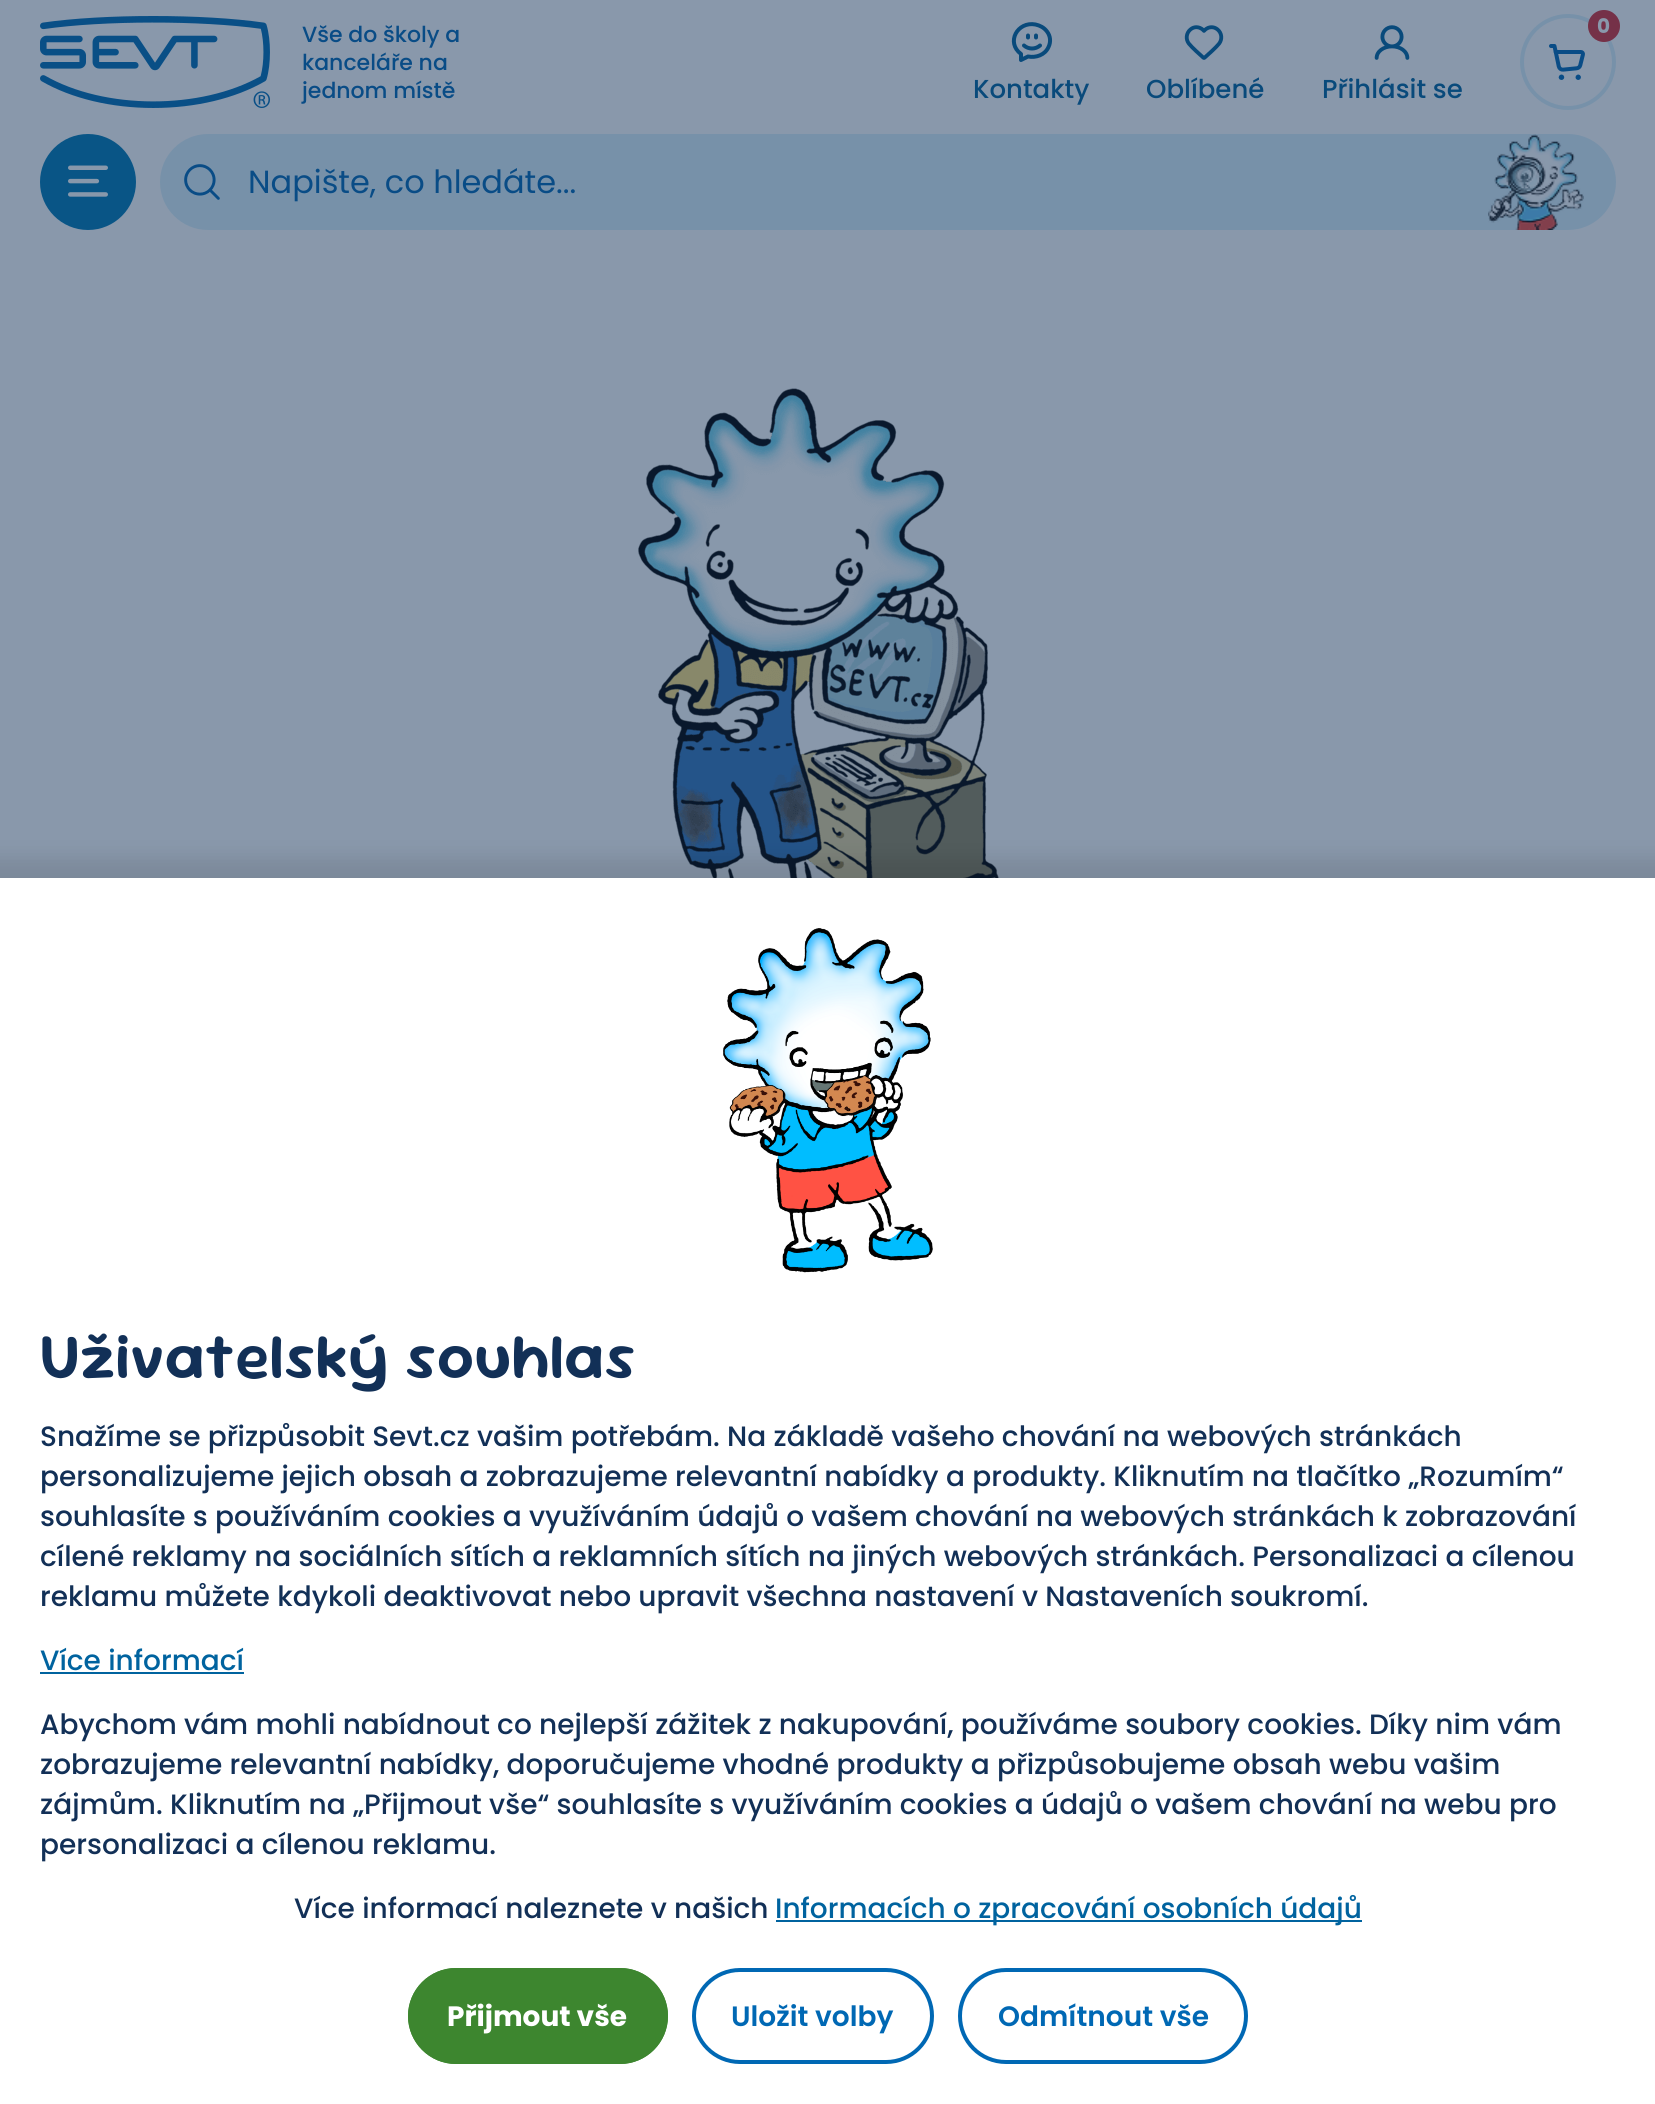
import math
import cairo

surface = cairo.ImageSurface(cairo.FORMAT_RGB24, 1655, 2104)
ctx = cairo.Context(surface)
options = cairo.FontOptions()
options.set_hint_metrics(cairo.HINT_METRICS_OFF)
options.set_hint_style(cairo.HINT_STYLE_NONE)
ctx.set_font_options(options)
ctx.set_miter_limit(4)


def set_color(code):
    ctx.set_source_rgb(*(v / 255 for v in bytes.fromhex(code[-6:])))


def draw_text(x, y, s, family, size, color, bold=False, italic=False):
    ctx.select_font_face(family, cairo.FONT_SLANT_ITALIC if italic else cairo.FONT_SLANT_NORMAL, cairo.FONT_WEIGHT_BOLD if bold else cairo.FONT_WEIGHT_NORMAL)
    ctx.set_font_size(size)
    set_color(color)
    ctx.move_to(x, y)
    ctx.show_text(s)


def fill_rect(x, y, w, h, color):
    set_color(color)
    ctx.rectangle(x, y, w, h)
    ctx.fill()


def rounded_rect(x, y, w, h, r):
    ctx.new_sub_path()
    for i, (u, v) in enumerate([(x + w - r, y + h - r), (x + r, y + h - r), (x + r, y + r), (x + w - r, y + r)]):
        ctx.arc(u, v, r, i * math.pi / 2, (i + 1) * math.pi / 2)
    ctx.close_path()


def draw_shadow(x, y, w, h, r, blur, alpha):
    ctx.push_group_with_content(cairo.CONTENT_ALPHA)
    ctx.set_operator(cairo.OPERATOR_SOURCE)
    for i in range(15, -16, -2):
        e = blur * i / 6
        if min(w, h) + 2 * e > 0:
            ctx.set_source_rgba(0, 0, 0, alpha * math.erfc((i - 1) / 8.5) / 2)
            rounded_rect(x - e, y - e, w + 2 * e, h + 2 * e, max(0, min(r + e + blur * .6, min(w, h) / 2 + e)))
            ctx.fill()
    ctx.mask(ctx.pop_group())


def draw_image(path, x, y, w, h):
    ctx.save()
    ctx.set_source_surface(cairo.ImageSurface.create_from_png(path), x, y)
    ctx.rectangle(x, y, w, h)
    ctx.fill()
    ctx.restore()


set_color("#8998ab")
ctx.paint()
draw_image("assets/img1.png", 40, 16, 230, 92)
draw_text(302, 42, "Vše do školy a", "Poppins Medium", 22, "#094c86")
draw_text(302, 70, "kanceláře na", "Poppins Medium", 22, "#094c86")
draw_text(302, 98, "jednom místě", "Poppins Medium", 22, "#094c86")
ctx.new_path()
ctx.move_to(1028, 56.5)
ctx.line_to(1021, 60)
ctx.line_to(1021, 54)
ctx.curve_to(1005.5, 42.5, 1017.5, 21, 1035.5, 24.5)
ctx.curve_to(1040, 25.5, 1044, 27.5, 1047, 31.5)
ctx.curve_to(1050.5, 36, 1051, 42, 1048.5, 47)
ctx.curve_to(1045, 55, 1036, 58, 1028, 56.5)
ctx.move_to(1040, 45.5)
ctx.curve_to(1035.5, 49.5, 1028.5, 49.5, 1024, 45.5)
ctx.move_to(1028, 35.5)
ctx.line_to(1028, 37.5)
ctx.move_to(1036, 35.5)
ctx.line_to(1036, 37.5)
set_color("#094a7b")
ctx.set_line_width(4)
ctx.set_line_cap(cairo.LINE_CAP_ROUND)
ctx.set_line_join(cairo.LINE_JOIN_ROUND)
ctx.stroke()
draw_text(973, 98, "Kontakty", "Poppins Medium", 26, "#094a7b")
draw_image("assets/img2.png", 1184, 25, 40, 35)
draw_text(1146, 98, "Oblíbené", "Poppins Medium", 26, "#094a7b")
draw_image("assets/img3.png", 1374, 25, 36, 35)
draw_text(1322, 98, "Přihlásit se", "Poppins Medium", 26, "#094a7b")
ctx.new_path()
ctx.arc(1568, 62, 46, 0, 2 * math.pi)
set_color("#7791a9")
ctx.set_line_cap(cairo.LINE_CAP_BUTT)
ctx.set_line_join(cairo.LINE_JOIN_MITER)
ctx.stroke()
set_color("#753148")
ctx.arc(1604, 26, 16, 0, 2 * math.pi)
ctx.fill()
draw_text(1597, 33, "0", "Poppins", 20, "#8998ab", bold=True)
draw_image("assets/img4.png", 1549, 44, 36, 36)
set_color("#095586")
ctx.arc(88, 182, 48, 0, 2 * math.pi)
ctx.fill()
draw_image("assets/img5.png", 68, 165, 40, 32)
set_color("#7791a9")
rounded_rect(160, 134, 1456, 96, 48)
ctx.fill()
draw_image("assets/img6.png", 184, 164, 36, 36)
draw_text(248, 193, "Napište, co hledáte...", "Poppins", 32, "#094c86")
draw_image("assets/img7.png", 1488, 134, 96, 96)
draw_image("assets/img8.png", 638, 388, 361, 490)
set_color("#000000")
draw_shadow(-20, 858, 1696, 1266, 0, 10, 0.1)
fill_rect(0, 878, 1655, 1226, "#ffffff")
draw_image("assets/img9.png", 723, 928, 210, 345)
draw_text(40, 1378, "Uživatelský souhlas", "Sour Gummy SemiBold", 64, "#123057")
draw_text(40, 1446, "Snažíme se přizpůsobit Sevt.cz vašim potřebám. Na základě vašeho chování na webových stránkách", "Poppins Medium", 28, "#123057")
draw_text(40, 1486, "personalizujeme jejich obsah a zobrazujeme relevantní nabídky a produkty. Kliknutím na tlačítko „Rozumím“", "Poppins Medium", 28, "#123057")
draw_text(40, 1526, "souhlasíte s používáním cookies a využíváním údajů o vašem chování na webových stránkách k zobrazování", "Poppins Medium", 28, "#123057")
draw_text(40, 1566, "cílené reklamy na sociálních sítích a reklamních sítích na jiných webových stránkách. Personalizaci a cílenou", "Poppins Medium", 28, "#123057")
draw_text(40, 1606, "reklamu můžete kdykoli deaktivovat nebo upravit všechna nastavení v Nastaveních soukromí.", "Poppins Medium", 28, "#123057")
draw_text(40, 1670, "Více informací", "Poppins Medium", 28, "#00639f")
fill_rect(40, 1672, 204, 2, "#00639f")
draw_text(40, 1734, "Abychom vám mohli nabídnout co nejlepší zážitek z nakupování, používáme soubory cookies. Díky nim vám", "Poppins Medium", 28, "#123057")
draw_text(40, 1774, "zobrazujeme relevantní nabídky, doporučujeme vhodné produkty a přizpůsobujeme obsah webu vašim", "Poppins Medium", 28, "#123057")
draw_text(40, 1814, "zájmům. Kliknutím na „Přijmout vše“ souhlasíte s využíváním cookies a údajů o vašem chování na webu pro", "Poppins Medium", 28, "#123057")
draw_text(40, 1854, "personalizaci a cílenou reklamu.", "Poppins Medium", 28, "#123057")
draw_text(294, 1918, "Více informací naleznete v našich", "Poppins Medium", 28, "#123057")
fill_rect(776, 1920, 586, 2, "#00639f")
draw_text(775, 1918, "Informacích o zpracování osobních údajů", "Poppins Medium", 28, "#00639f")
set_color("#3d862f")
rounded_rect(408, 1968, 260, 96, 48)
ctx.fill()
rounded_rect(410, 1970, 256, 92, 46)
ctx.stroke()
draw_text(447, 2026, "Přijmout vše", "Poppins", 28, "#ffffff", bold=True)
rounded_rect(694, 1970, 238, 92, 46)
set_color("#0068b4")
ctx.stroke()
draw_text(731, 2026, "Uložit volby", "Poppins SemiBold", 28, "#0068b4")
rounded_rect(960, 1970, 286, 92, 46)
ctx.stroke()
draw_text(998, 2026, "Odmítnout vše", "Poppins SemiBold", 28, "#0068b4")
surface.write_to_png("output.png")
